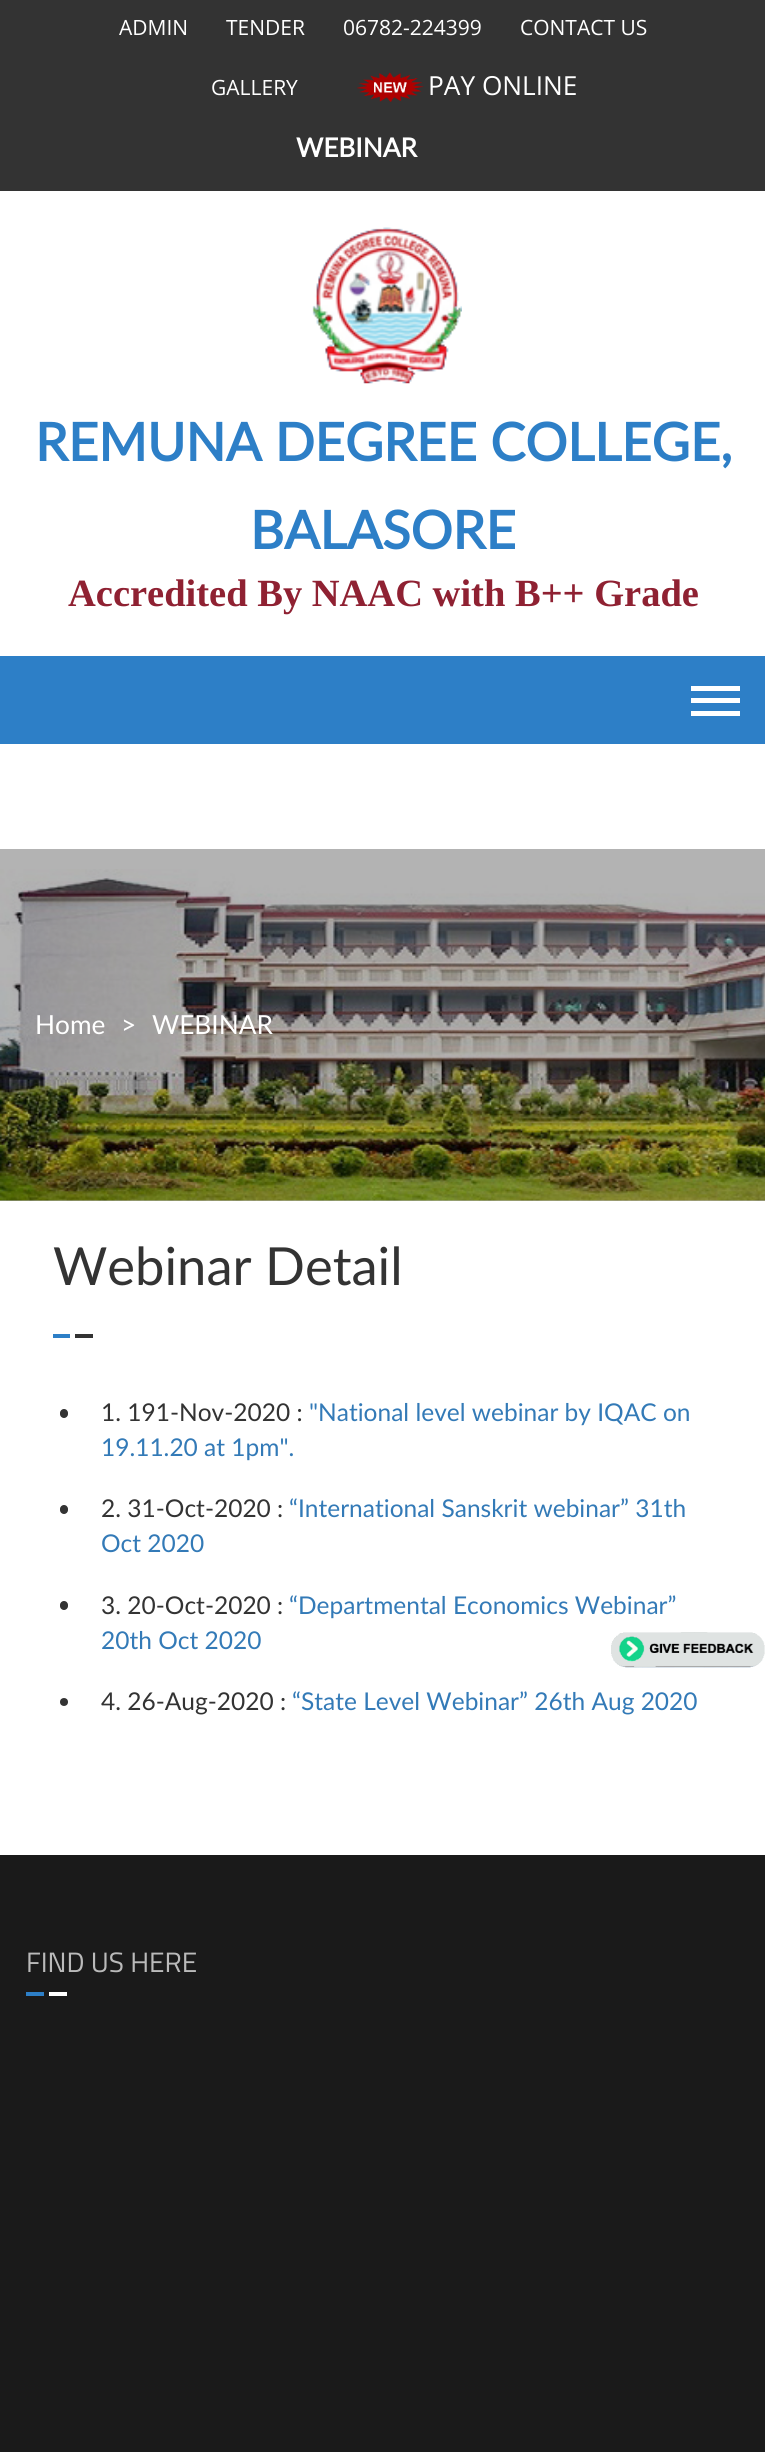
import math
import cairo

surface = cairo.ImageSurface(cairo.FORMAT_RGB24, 765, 2452)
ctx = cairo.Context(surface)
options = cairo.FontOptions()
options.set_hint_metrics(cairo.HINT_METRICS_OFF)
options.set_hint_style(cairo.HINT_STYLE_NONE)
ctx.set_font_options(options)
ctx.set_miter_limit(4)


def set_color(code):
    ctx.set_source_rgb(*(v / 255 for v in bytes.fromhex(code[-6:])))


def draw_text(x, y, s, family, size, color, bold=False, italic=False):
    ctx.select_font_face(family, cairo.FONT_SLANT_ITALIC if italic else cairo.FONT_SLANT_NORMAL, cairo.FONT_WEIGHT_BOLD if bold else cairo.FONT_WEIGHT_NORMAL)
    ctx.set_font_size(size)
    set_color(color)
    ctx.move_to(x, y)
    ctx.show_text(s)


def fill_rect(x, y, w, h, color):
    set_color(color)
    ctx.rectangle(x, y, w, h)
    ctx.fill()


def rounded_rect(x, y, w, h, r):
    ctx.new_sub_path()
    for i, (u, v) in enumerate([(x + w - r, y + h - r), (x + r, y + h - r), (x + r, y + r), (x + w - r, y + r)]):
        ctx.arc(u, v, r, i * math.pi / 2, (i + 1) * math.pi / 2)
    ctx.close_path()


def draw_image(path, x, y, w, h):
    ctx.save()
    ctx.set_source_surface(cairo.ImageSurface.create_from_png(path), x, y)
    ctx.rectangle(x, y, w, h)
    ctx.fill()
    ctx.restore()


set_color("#ffffff")
ctx.paint()
fill_rect(0, 849, 765, 352, "#b3b3b3")
fill_rect(0, 0, 765, 191, "#333333")
draw_text(119, 35, "ADMIN", "Open Sans", 21, "#ffffff")
draw_text(226, 35, "TENDER", "Open Sans", 21, "#ffffff")
draw_text(343, 35, "06782-224399", "Open Sans", 21, "#ffffff")
draw_text(520, 35, "CONTACT US", "Open Sans", 21, "#ffffff")
draw_text(211, 95, "GALLERY", "Open Sans", 21, "#ffffff")
draw_image("assets/img1.png", 357, 72, 67, 30)
draw_text(428, 95, "PAY ONLINE", "Open Sans", 26.25, "#ffffff")
draw_text(296, 157, "WEBINAR", "Lato", 26.25, "#ffffff", bold=True)
draw_image("assets/img2.png", 312, 227, 150, 157)
draw_text(35, 461, "REMUNA DEGREE COLLEGE,", "Lato", 52.5, "#2d7fc7", bold=True)
draw_text(250, 549, "BALASORE", "Lato", 52.5, "#2d7fc7", bold=True)
draw_text(68, 606, "Accredited By NAAC with B++ Grade", "Liberation Serif", 38.5, "#8f2132", bold=True)
fill_rect(0, 656, 765, 88, "#2d7fc7")
fill_rect(691, 686, 49, 5, "#ffffff")
fill_rect(691, 698, 49, 5, "#ffffff")
fill_rect(691, 711, 49, 5, "#ffffff")
draw_image("assets/img3.png", 0, 869, 765, 332)
draw_text(35, 1034, "Home", "Lato", 26.25, "#ffffff")
draw_text(121, 1034, ">", "Lato", 26.25, "#ffffff")
draw_text(152, 1034, "WEBINAR", "Lato", 26.25, "#ffffff")
draw_text(53, 1285, "Webinar Detail", "Lato", 52.5, "#333333")
fill_rect(53, 1334, 17, 4, "#2d7fc7")
fill_rect(75, 1334, 18, 4, "#333333")
rounded_rect(60, 1409, 8, 9, 4)
ctx.fill()
draw_text(101, 1421, "1. 191-Nov-2020 :", "Lato", 24.5, "#333333")
draw_text(309, 1421, "\"National level webinar by IQAC on", "Lato", 24.5, "#337ab7")
draw_text(101, 1456, "19.11.20 at 1pm\".", "Lato", 24.5, "#337ab7")
set_color("#333333")
rounded_rect(60, 1505, 8, 9, 4)
ctx.fill()
draw_text(101, 1517, "2. 31-Oct-2020 :", "Lato", 24.5, "#333333")
draw_text(289, 1517, "“International Sanskrit webinar” 31th", "Lato", 24.5, "#337ab7")
draw_text(101, 1552, "Oct 2020", "Lato", 24.5, "#337ab7")
set_color("#333333")
rounded_rect(60, 1601, 8, 9, 4)
ctx.fill()
draw_text(101, 1614, "3. 20-Oct-2020 :", "Lato", 24.5, "#333333")
draw_text(289, 1614, "“Departmental Economics Webinar”", "Lato", 24.5, "#337ab7")
draw_text(101, 1649, "20th Oct 2020", "Lato", 24.5, "#337ab7")
set_color("#333333")
ctx.new_path()
ctx.arc(64, 1702, 4, 0, 2 * math.pi)
ctx.fill()
draw_text(101, 1710, "4. 26-Aug-2020 :", "Lato", 24.5, "#333333")
draw_text(292, 1710, "“State Level Webinar” 26th Aug 2020", "Lato", 24.5, "#337ab7")
fill_rect(0, 1855, 765, 597, "#1a1a1a")
draw_text(26, 1972, "FIND US HERE", "Titillium Web", 28, "#bababa")
fill_rect(26, 1992, 18, 4, "#2d7fc7")
fill_rect(49, 1992, 18, 4, "#ffffff")
draw_image("assets/img4.png", 611, 1632, 154, 36)
surface.write_to_png("output.png")
